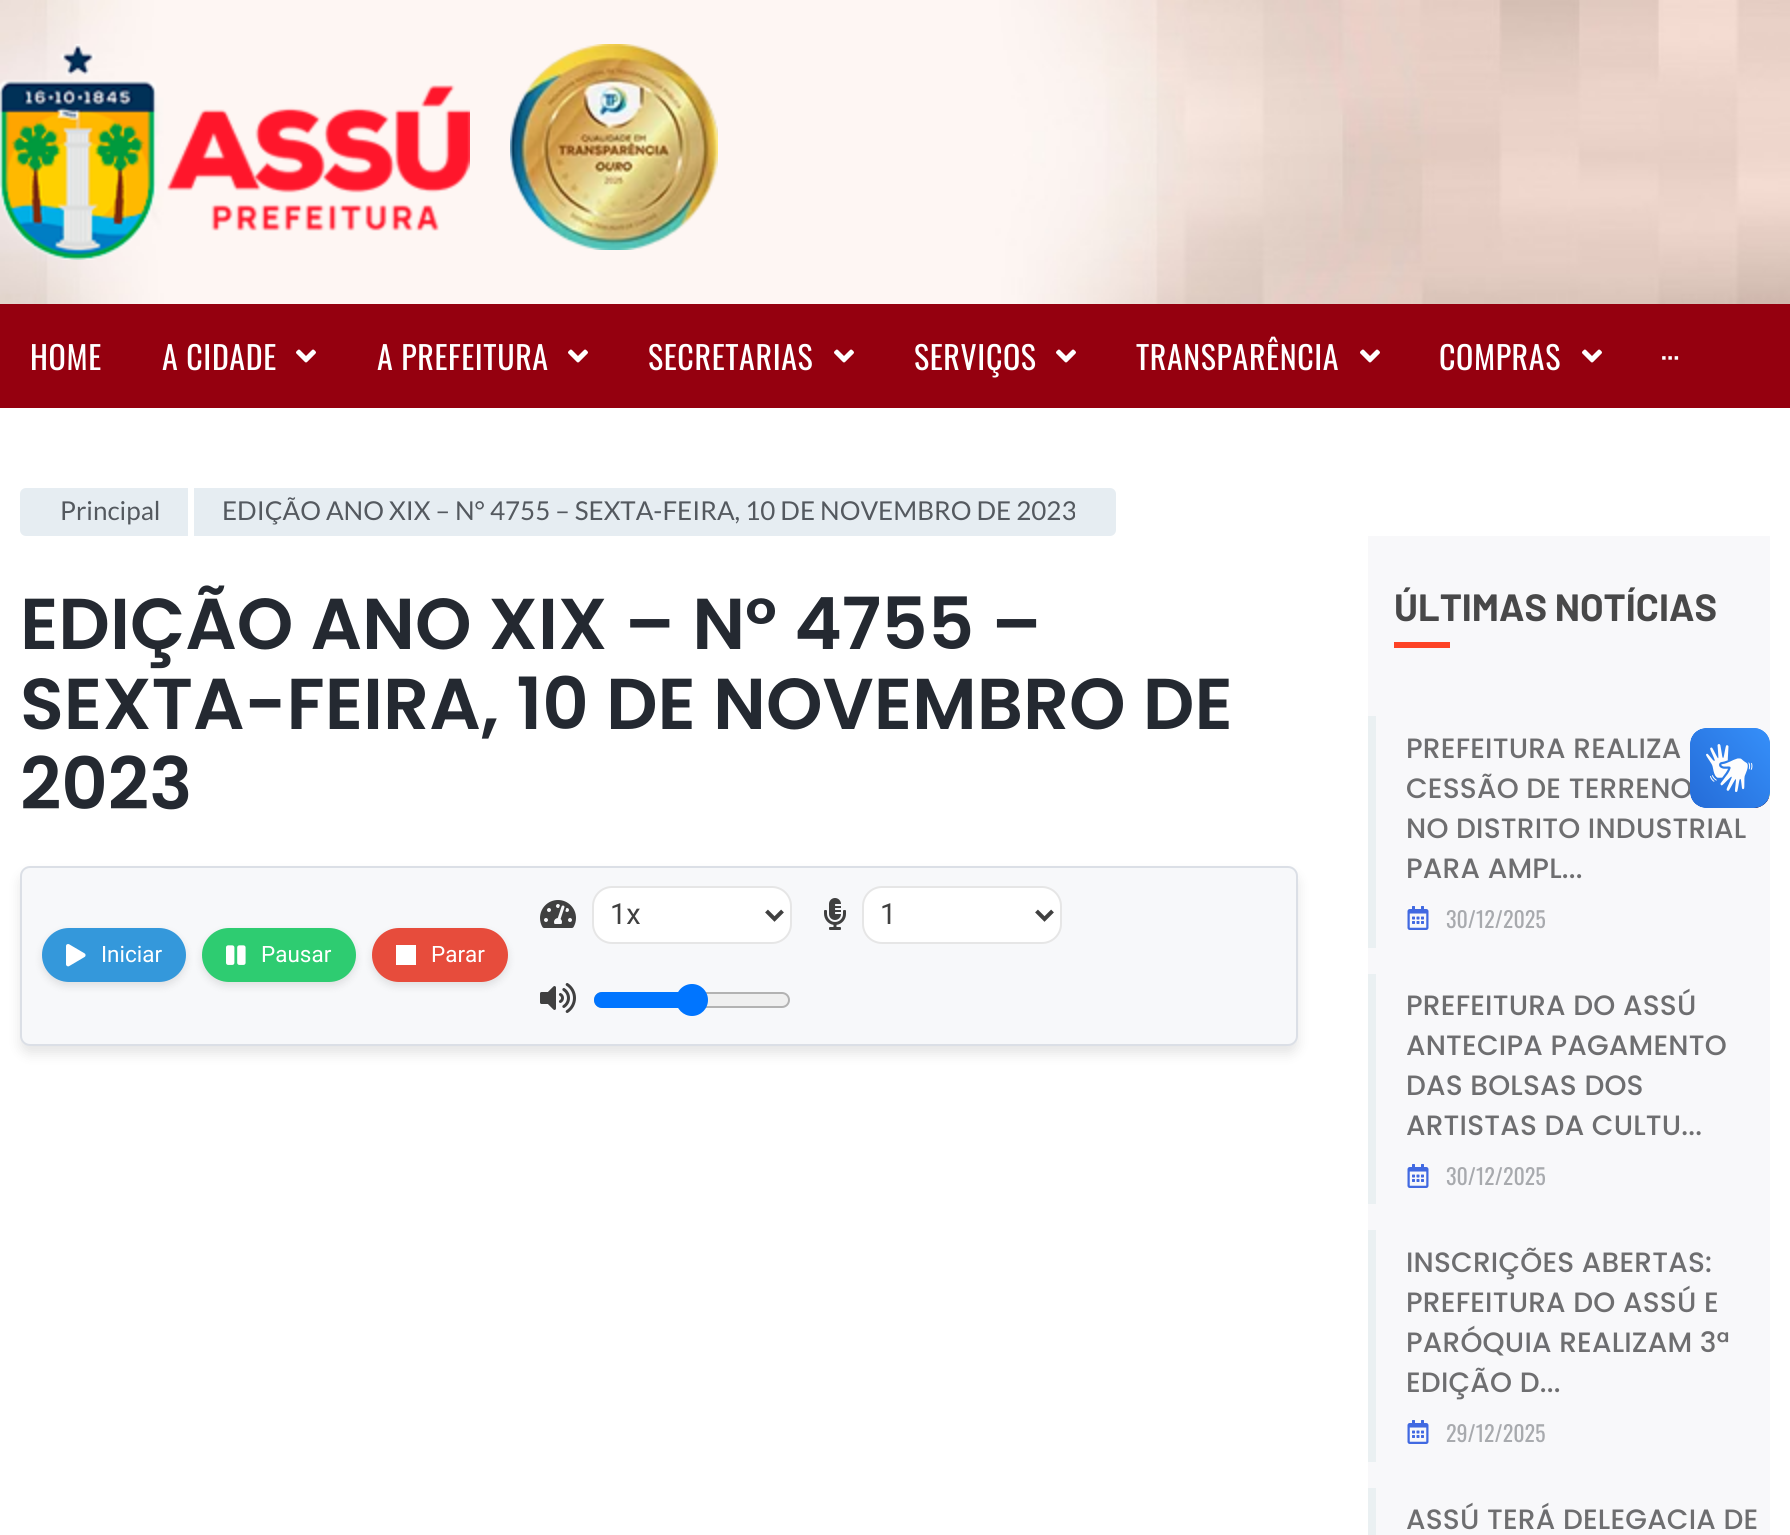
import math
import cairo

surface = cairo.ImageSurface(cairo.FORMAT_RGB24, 1790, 1535)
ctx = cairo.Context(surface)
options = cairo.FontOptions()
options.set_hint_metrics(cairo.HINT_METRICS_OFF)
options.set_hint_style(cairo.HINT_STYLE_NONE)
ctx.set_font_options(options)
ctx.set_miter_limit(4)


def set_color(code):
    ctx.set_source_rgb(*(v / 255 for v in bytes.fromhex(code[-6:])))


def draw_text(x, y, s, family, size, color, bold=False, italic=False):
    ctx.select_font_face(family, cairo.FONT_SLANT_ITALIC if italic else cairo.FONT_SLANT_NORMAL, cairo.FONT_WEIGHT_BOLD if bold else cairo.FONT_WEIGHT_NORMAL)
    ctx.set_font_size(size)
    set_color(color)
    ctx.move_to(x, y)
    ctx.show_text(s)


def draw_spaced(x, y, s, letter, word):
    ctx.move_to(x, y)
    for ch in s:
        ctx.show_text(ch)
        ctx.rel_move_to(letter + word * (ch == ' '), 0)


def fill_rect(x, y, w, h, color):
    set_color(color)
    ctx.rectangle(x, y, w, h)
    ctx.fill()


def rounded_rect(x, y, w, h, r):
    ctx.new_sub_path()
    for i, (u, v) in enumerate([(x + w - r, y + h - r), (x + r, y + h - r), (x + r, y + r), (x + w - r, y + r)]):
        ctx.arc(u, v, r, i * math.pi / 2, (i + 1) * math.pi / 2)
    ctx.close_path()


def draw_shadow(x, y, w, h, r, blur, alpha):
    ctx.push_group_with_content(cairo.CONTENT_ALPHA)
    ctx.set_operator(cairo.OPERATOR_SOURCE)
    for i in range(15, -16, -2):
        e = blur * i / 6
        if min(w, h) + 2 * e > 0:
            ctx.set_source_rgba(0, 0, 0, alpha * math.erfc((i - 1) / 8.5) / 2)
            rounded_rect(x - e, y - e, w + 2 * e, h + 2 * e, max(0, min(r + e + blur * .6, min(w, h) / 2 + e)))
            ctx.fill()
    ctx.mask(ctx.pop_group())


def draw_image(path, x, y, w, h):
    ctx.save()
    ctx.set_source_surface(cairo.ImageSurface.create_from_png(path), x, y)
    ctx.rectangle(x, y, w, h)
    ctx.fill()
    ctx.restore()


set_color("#ffffff")
ctx.paint()
draw_image("assets/img1.png", 0, 0, 1790, 304)
draw_image("assets/img2.png", 0, 44, 470, 216)
draw_image("assets/img3.png", 510, 44, 208, 206)
fill_rect(0, 304, 1790, 104, "#95000f")
ctx.select_font_face("Oswald")
ctx.set_font_size(32)
set_color("#ffffff")
draw_spaced(30, 370, "HOME", 0.6, 0)
draw_spaced(162, 370, "A CIDADE", 0.6, 0)
draw_image("assets/img4.png", 296, 349, 20, 14)
draw_spaced(377, 370, "A PREFEITURA", 0.6, 0)
draw_image("assets/img4.png", 568, 349, 20, 14)
draw_spaced(648, 370, "SECRETARIAS", 0.6, 0)
draw_image("assets/img4.png", 834, 349, 20, 14)
draw_spaced(914, 370, "SERVIÇOS", 0.6, 0)
draw_image("assets/img4.png", 1056, 349, 20, 14)
draw_spaced(1136, 370, "TRANSPARÊNCIA", 0.6, 0)
draw_image("assets/img4.png", 1360, 349, 20, 14)
draw_spaced(1439, 370, "COMPRAS", 0.6, 0)
draw_image("assets/img4.png", 1582, 349, 20, 14)
draw_spaced(1661, 370, "···", 0.6, 0)
set_color("#e6edf2")
rounded_rect(20, 488, 1096, 48, 6)
ctx.fill()
draw_text(60, 520, "Principal", "Lato", 26, "#54595f")
fill_rect(188, 488, 6, 48, "#ffffff")
draw_text(222, 520, "EDIÇÃO ANO XIX – N° 4755 – SEXTA-FEIRA, 10 DE NOVEMBRO DE 2023", "Lato", 26, "#54595f")
draw_text(20, 649, "EDIÇÃO ANO XIX – N° 4755 –", "Poppins SemiBold", 72, "#242931")
draw_text(20, 729, "SEXTA-FEIRA, 10 DE NOVEMBRO DE", "Poppins SemiBold", 72, "#242931")
draw_text(20, 809, "2023", "Poppins SemiBold", 72, "#242931")
set_color("#000000")
draw_shadow(20, 874, 1278, 180, 10, 6, 0.1)
set_color("#f7f8fa")
rounded_rect(21, 867, 1276, 178, 9)
ctx.fill_preserve()
set_color("#dbdfe6")
ctx.stroke()
draw_image("assets/img5.png", 540, 900, 36, 28)
set_color("#ffffff")
rounded_rect(592, 886, 200, 58, 20)
ctx.fill()
rounded_rect(593, 887, 198, 56, 19)
ctx.set_source_rgba(0, 0, 0, 0.1)
ctx.stroke()
ctx.new_path()
ctx.move_to(766.5, 911)
ctx.line_to(774.5, 919)
ctx.line_to(782.5, 911)
set_color("#404040")
ctx.set_line_width(4)
ctx.stroke()
draw_text(610, 924, "1x", "Roboto", 29, "#404040")
draw_image("assets/img6.png", 824, 898, 22, 32)
set_color("#ffffff")
rounded_rect(862, 886, 200, 58, 20)
ctx.fill()
rounded_rect(863, 887, 198, 56, 19)
ctx.set_source_rgba(0, 0, 0, 0.1)
ctx.set_line_width(2)
ctx.stroke()
ctx.new_path()
ctx.move_to(1036.5, 911)
ctx.line_to(1044.5, 919)
ctx.line_to(1052.5, 911)
set_color("#404040")
ctx.set_line_width(4)
ctx.stroke()
draw_text(880, 924, "1", "Roboto", 29, "#404040")
draw_image("assets/img7.png", 540, 983, 36, 30)
set_color("#efefef")
rounded_rect(595, 993, 194, 14, 7)
ctx.fill_preserve()
set_color("#b2b2b2")
ctx.set_line_width(2)
ctx.stroke()
set_color("#0075ff")
ctx.new_path()
ctx.move_to(602, 992)
ctx.line_to(692, 992)
ctx.line_to(692, 1008)
ctx.line_to(602, 1008)
ctx.curve_to(597.5, 1008, 594, 1004.5, 594, 1000)
ctx.curve_to(594, 995.5, 597.5, 992, 602, 992)
ctx.close_path()
ctx.fill()
ctx.arc(692, 1000, 16, 0, 2 * math.pi)
ctx.fill()
set_color("#000000")
draw_shadow(42, 932, 144, 54, 27, 4, 0.1)
set_color("#3498db")
rounded_rect(42, 928, 144, 54, 27)
ctx.fill()
draw_image("assets/img8.png", 66, 944, 20, 23)
draw_text(101, 962, "Iniciar", "Roboto", 22.5, "#ffffff")
set_color("#000000")
draw_shadow(202, 932, 154, 54, 27, 4, 0.1)
set_color("#2ecc71")
rounded_rect(202, 928, 154, 54, 27)
ctx.fill()
draw_image("assets/img9.png", 226, 945, 20, 20)
draw_text(261, 962, "Pausar", "Roboto", 22.5, "#ffffff")
set_color("#000000")
draw_shadow(372, 932, 136, 54, 27, 4, 0.1)
set_color("#e74c3c")
rounded_rect(372, 928, 136, 54, 27)
ctx.fill()
fill_rect(396, 945, 20, 20, "#ffffff")
draw_text(431, 962, "Parar", "Roboto", 22.5, "#ffffff")
fill_rect(1368, 536, 402, 999, "#f8f8fa")
draw_text(1394, 621, "ÚLTIMAS NOTÍCIAS", "Barlow", 38, "#484849", bold=True)
fill_rect(1394, 642, 56, 6, "#fd4326")
fill_rect(1368, 716, 8, 232, "#eaf0f2")
ctx.select_font_face("Poppins Medium")
ctx.set_font_size(28)
set_color("#6e6e70")
draw_spaced(1406, 758, "PREFEITURA REALIZA", 0.2, 0)
draw_spaced(1406, 798, "CESSÃO DE TERRENO", 0.2, 0)
draw_spaced(1406, 838, "NO DISTRITO INDUSTRIAL", 0.2, 0)
draw_spaced(1406, 878, "PARA AMPL...", 0.2, 0)
draw_image("assets/img10.png", 1407, 906, 22, 24)
draw_text(1446, 928, "30/12/2025", "Oswald", 22, "#a8aaae")
fill_rect(1368, 974, 8, 230, "#eaf0f2")
ctx.select_font_face("Poppins Medium")
ctx.set_font_size(28)
set_color("#6e6e70")
draw_spaced(1406, 1015, "PREFEITURA DO ASSÚ", 0.2, 0)
draw_spaced(1406, 1055, "ANTECIPA PAGAMENTO", 0.2, 0)
draw_spaced(1406, 1095, "DAS BOLSAS DOS", 0.2, 0)
draw_spaced(1406, 1135, "ARTISTAS DA CULTU...", 0.2, 0)
draw_image("assets/img10.png", 1407, 1164, 22, 24)
draw_text(1446, 1185, "30/12/2025", "Oswald", 22, "#a8aaae")
fill_rect(1368, 1230, 8, 232, "#eaf0f2")
ctx.select_font_face("Poppins Medium")
ctx.set_font_size(28)
set_color("#6e6e70")
draw_spaced(1406, 1272, "INSCRIÇÕES ABERTAS:", 0.2, 0)
draw_spaced(1406, 1312, "PREFEITURA DO ASSÚ E", 0.2, 0)
draw_spaced(1406, 1352, "PARÓQUIA REALIZAM 3ª", 0.2, 0)
draw_spaced(1406, 1392, "EDIÇÃO D...", 0.2, 0)
draw_image("assets/img10.png", 1407, 1420, 22, 24)
draw_text(1446, 1442, "29/12/2025", "Oswald", 22, "#a8aaae")
fill_rect(1368, 1488, 8, 47, "#eaf0f2")
ctx.select_font_face("Poppins Medium")
ctx.set_font_size(28)
set_color("#6e6e70")
draw_spaced(1406, 1529, "ASSÚ TERÁ DELEGACIA DE", 0.2, 0)
draw_image("assets/img11.png", 1690, 728, 80, 80)
draw_image("assets/img12.png", 1690, 728, 80, 80)
surface.write_to_png("output.png")
